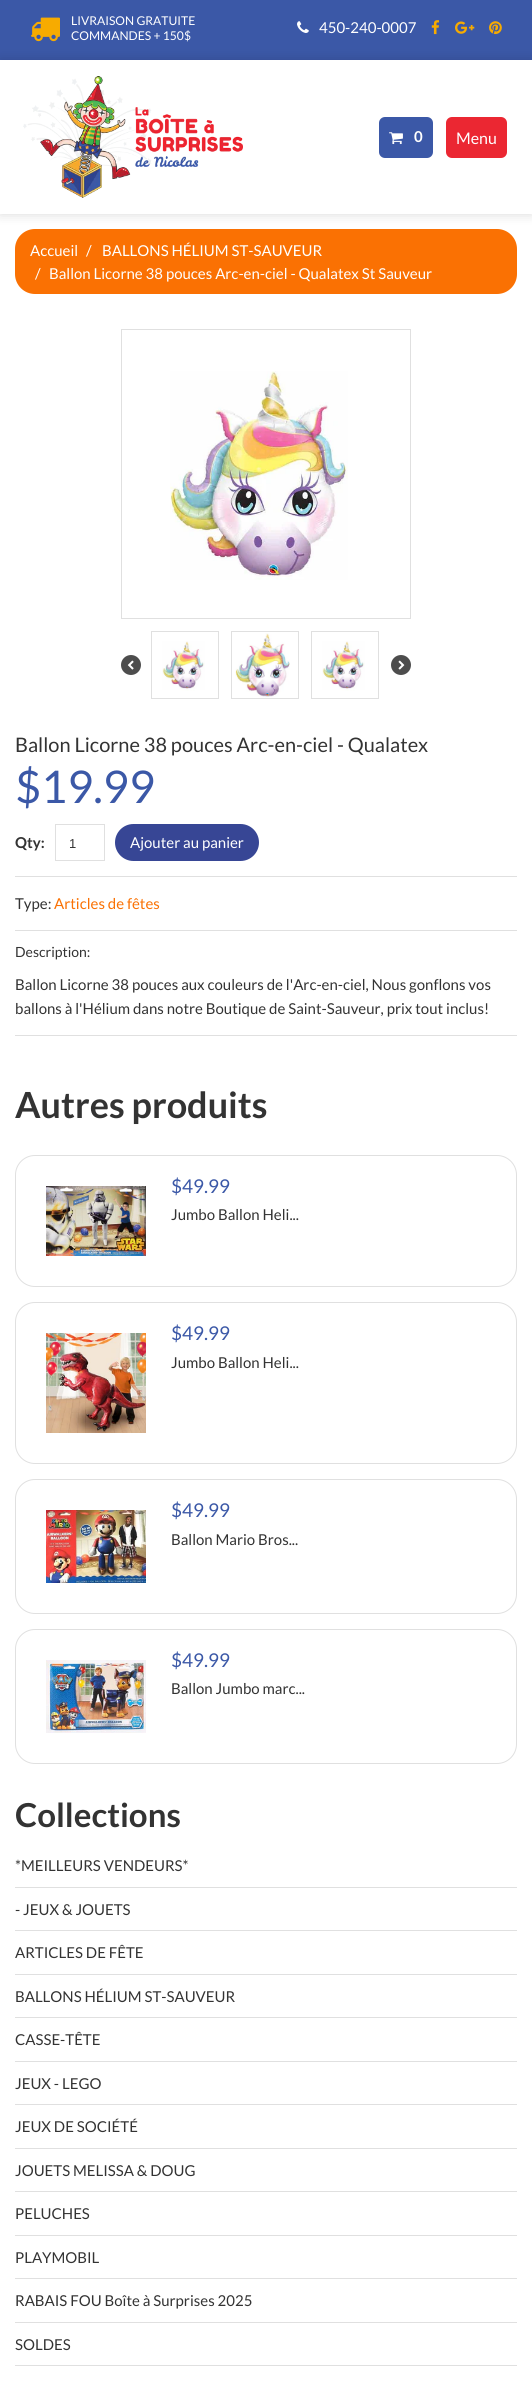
import math
import cairo

surface = cairo.ImageSurface(cairo.FORMAT_RGB24, 532, 2387)
ctx = cairo.Context(surface)
options = cairo.FontOptions()
options.set_hint_metrics(cairo.HINT_METRICS_OFF)
options.set_hint_style(cairo.HINT_STYLE_NONE)
ctx.set_font_options(options)
ctx.set_miter_limit(4)


def set_color(code):
    ctx.set_source_rgb(*(v / 255 for v in bytes.fromhex(code[-6:])))


def draw_text(x, y, s, family, size, color, bold=False, italic=False):
    ctx.select_font_face(family, cairo.FONT_SLANT_ITALIC if italic else cairo.FONT_SLANT_NORMAL, cairo.FONT_WEIGHT_BOLD if bold else cairo.FONT_WEIGHT_NORMAL)
    ctx.set_font_size(size)
    set_color(color)
    ctx.move_to(x, y)
    ctx.show_text(s)


def fill_rect(x, y, w, h, color):
    set_color(color)
    ctx.rectangle(x, y, w, h)
    ctx.fill()


def rounded_rect(x, y, w, h, r):
    ctx.new_sub_path()
    for i, (u, v) in enumerate([(x + w - r, y + h - r), (x + r, y + h - r), (x + r, y + r), (x + w - r, y + r)]):
        ctx.arc(u, v, r, i * math.pi / 2, (i + 1) * math.pi / 2)
    ctx.close_path()


def draw_shadow(x, y, w, h, r, blur, alpha):
    ctx.push_group_with_content(cairo.CONTENT_ALPHA)
    ctx.set_operator(cairo.OPERATOR_SOURCE)
    for i in range(15, -16, -2):
        e = blur * i / 6
        if min(w, h) + 2 * e > 0:
            ctx.set_source_rgba(0, 0, 0, alpha * math.erfc((i - 1) / 8.5) / 2)
            rounded_rect(x - e, y - e, w + 2 * e, h + 2 * e, max(0, min(r + e + blur * .6, min(w, h) / 2 + e)))
            ctx.fill()
    ctx.mask(ctx.pop_group())


def draw_image(path, x, y, w, h):
    ctx.save()
    ctx.set_source_surface(cairo.ImageSurface.create_from_png(path), x, y)
    ctx.rectangle(x, y, w, h)
    ctx.fill()
    ctx.restore()


set_color("#ffffff")
ctx.paint()
fill_rect(0, 0, 532, 60, "#3b58a7")
draw_image("assets/img1.png", 31, 17, 29, 25)
draw_text(71, 25, "LIVRAISON GRATUITE", "Lato", 12.1, "#ffffff")
draw_text(71, 40, "COMMANDES + 150$", "Lato", 12.1, "#ffffff")
draw_image("assets/img2.png", 297, 21, 12, 12)
draw_text(319, 33, "450-240-0007", "Lato", 15, "#ffffff")
draw_image("assets/img3.png", 431, 20, 9, 15)
draw_image("assets/img4.png", 455, 21, 20, 13)
draw_image("assets/img5.png", 489, 21, 13, 14)
set_color("#fa7103")
rounded_rect(15, 229, 502, 65, 20)
ctx.fill()
ctx.save()
ctx.set_fill_rule(cairo.FILL_RULE_EVEN_ODD)
ctx.new_path()
ctx.move_to(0, 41)
ctx.line_to(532, 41)
ctx.line_to(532, 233)
ctx.line_to(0, 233)
ctx.close_path()
ctx.move_to(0, 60)
ctx.line_to(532, 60)
ctx.line_to(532, 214)
ctx.line_to(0, 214)
ctx.close_path()
ctx.clip()
set_color("#000000")
draw_shadow(0, 60, 532, 154, 0, 6, 0.15)
ctx.restore()
draw_image("assets/img6.png", 23, 76, 220, 122)
set_color("#3b58a7")
rounded_rect(379, 117, 54, 41, 6)
ctx.fill()
draw_image("assets/img7.png", 389, 132, 14, 13)
draw_text(414, 142, "0", "Lato", 15, "#ffffff", bold=True)
set_color("#eb2732")
rounded_rect(446, 117, 61, 41, 6)
ctx.fill()
draw_text(456, 144, "Menu", "Lato", 16, "#ffffff")
draw_text(30, 256, "Accueil", "Lato", 15, "#ffffff")
draw_text(86, 256, "/", "Lato", 15, "#ffffff")
draw_text(102, 256, "BALLONS HÉLIUM ST-SAUVEUR", "Lato", 15, "#ffffff")
draw_text(35, 279, "/", "Lato", 15, "#ffffff")
draw_text(49, 279, "Ballon Licorne 38 pouces Arc-en-ciel - Qualatex St Sauveur", "Lato", 15, "#ffffff")
ctx.rectangle(121.5, 329.5, 289, 289)
set_color("#e0e0e0")
ctx.set_line_width(1)
ctx.stroke()
draw_image("assets/img8.png", 170, 371, 178, 209)
ctx.rectangle(151.5, 631.5, 67, 67)
ctx.stroke()
draw_image("assets/img9.png", 162, 641, 43, 50)
ctx.rectangle(231.5, 631.5, 67, 67)
ctx.stroke()
draw_image("assets/img10.png", 235, 633, 55, 65)
ctx.rectangle(311.5, 631.5, 67, 67)
ctx.stroke()
draw_image("assets/img9.png", 322, 641, 43, 50)
set_color("#4d4d4d")
ctx.arc(131, 665, 10, 0, 2 * math.pi)
ctx.fill()
draw_image("assets/img11.png", 127, 660, 7, 10)
ctx.arc(401, 665, 10, 0, 2 * math.pi)
ctx.fill()
draw_image("assets/img12.png", 398, 660, 7, 10)
draw_text(15, 752, "Ballon Licorne 38 pouces Arc-en-ciel - Qualatex", "Lato", 20, "#333333")
draw_text(15, 803, "$19.99", "Lato", 45, "#3b58a7")
draw_text(15, 848, "Qty:", "Lato", 15, "#333333", bold=True)
ctx.rectangle(55.5, 824.5, 49, 36)
set_color("#e0e0e0")
ctx.stroke()
draw_text(69, 848, "1", "Liberation Sans", 13, "#333333")
set_color("#374695")
rounded_rect(115, 824, 144, 37, 18.5)
ctx.fill()
draw_text(130, 848, "Ajouter au panier", "Lato", 15, "#ffffff")
fill_rect(15, 876, 502, 1, "#e0e0e0")
fill_rect(15, 930, 502, 1, "#e0e0e0")
draw_text(15, 909, "Type:", "Lato", 15, "#333333")
draw_text(54, 909, "Articles de fêtes", "Lato", 15, "#fa7103")
draw_text(15, 957, "Description:", "Lato", 14, "#333333")
draw_text(15, 990, "Ballon Licorne 38 pouces aux couleurs de l'Arc-en-ciel, Nous gonflons vos", "Lato", 15, "#333333")
draw_text(15, 1014, "ballons à l'Hélium dans notre Boutique de Saint-Sauveur, prix tout inclus!", "Lato", 15, "#333333")
fill_rect(15, 1035, 502, 1, "#e0e0e0")
draw_text(15, 1118, "Autres produits", "Lato", 36, "#333333", bold=True)
rounded_rect(15.5, 1155.5, 501, 131, 19.5)
set_color("#e0e0e0")
ctx.stroke()
draw_image("assets/img13.png", 46, 1186, 100, 70)
draw_text(171, 1193, "$49.99", "Lato", 19, "#3b58a7")
draw_text(171, 1220, "Jumbo Ballon Heli...", "Lato", 15, "#333333")
rounded_rect(15.5, 1302.5, 501, 161, 19.5)
set_color("#e0e0e0")
ctx.stroke()
draw_image("assets/img14.png", 46, 1333, 100, 100)
draw_text(171, 1340, "$49.99", "Lato", 19, "#3b58a7")
draw_text(171, 1368, "Jumbo Ballon Heli...", "Lato", 15, "#333333")
rounded_rect(15.5, 1479.5, 501, 134, 19.5)
set_color("#e0e0e0")
ctx.stroke()
draw_image("assets/img15.png", 46, 1510, 100, 73)
draw_text(171, 1517, "$49.99", "Lato", 19, "#3b58a7")
draw_text(171, 1545, "Ballon Mario Bros...", "Lato", 15, "#333333")
rounded_rect(15.5, 1629.5, 501, 134, 19.5)
set_color("#e0e0e0")
ctx.stroke()
draw_image("assets/img16.png", 46, 1660, 100, 73)
draw_text(171, 1667, "$49.99", "Lato", 19, "#3b58a7")
draw_text(171, 1694, "Ballon Jumbo marc...", "Lato", 15, "#333333")
draw_text(15, 1827, "Collections", "Lato", 33, "#333333", bold=True)
draw_text(15, 1871, "*MEILLEURS VENDEURS*", "Lato", 15, "#333333")
fill_rect(15, 1887, 502, 1, "#e0e0e0")
draw_text(15, 1915, "- JEUX & JOUETS", "Lato", 15, "#333333")
fill_rect(15, 1930, 502, 1, "#e0e0e0")
draw_text(15, 1958, "ARTICLES DE FÊTE", "Lato", 15, "#333333")
fill_rect(15, 1974, 502, 1, "#e0e0e0")
draw_text(15, 2002, "BALLONS HÉLIUM ST-SAUVEUR", "Lato", 15, "#333333")
fill_rect(15, 2017, 502, 1, "#e0e0e0")
draw_text(15, 2045, "CASSE-TÊTE", "Lato", 15, "#333333")
fill_rect(15, 2061, 502, 1, "#e0e0e0")
draw_text(15, 2089, "JEUX - LEGO", "Lato", 15, "#333333")
fill_rect(15, 2104, 502, 1, "#e0e0e0")
draw_text(15, 2132, "JEUX DE SOCIÉTÉ", "Lato", 15, "#333333")
fill_rect(15, 2148, 502, 1, "#e0e0e0")
draw_text(15, 2176, "JOUETS MELISSA & DOUG", "Lato", 15, "#333333")
fill_rect(15, 2191, 502, 1, "#e0e0e0")
draw_text(15, 2219, "PELUCHES", "Lato", 15, "#333333")
fill_rect(15, 2235, 502, 1, "#e0e0e0")
draw_text(15, 2263, "PLAYMOBIL", "Lato", 15, "#333333")
fill_rect(15, 2278, 502, 1, "#e0e0e0")
draw_text(15, 2306, "RABAIS FOU Boîte à Surprises 2025", "Lato", 15, "#333333")
fill_rect(15, 2322, 502, 1, "#e0e0e0")
draw_text(15, 2350, "SOLDES", "Lato", 15, "#333333")
fill_rect(15, 2365, 502, 1, "#e0e0e0")
surface.write_to_png("output.png")
